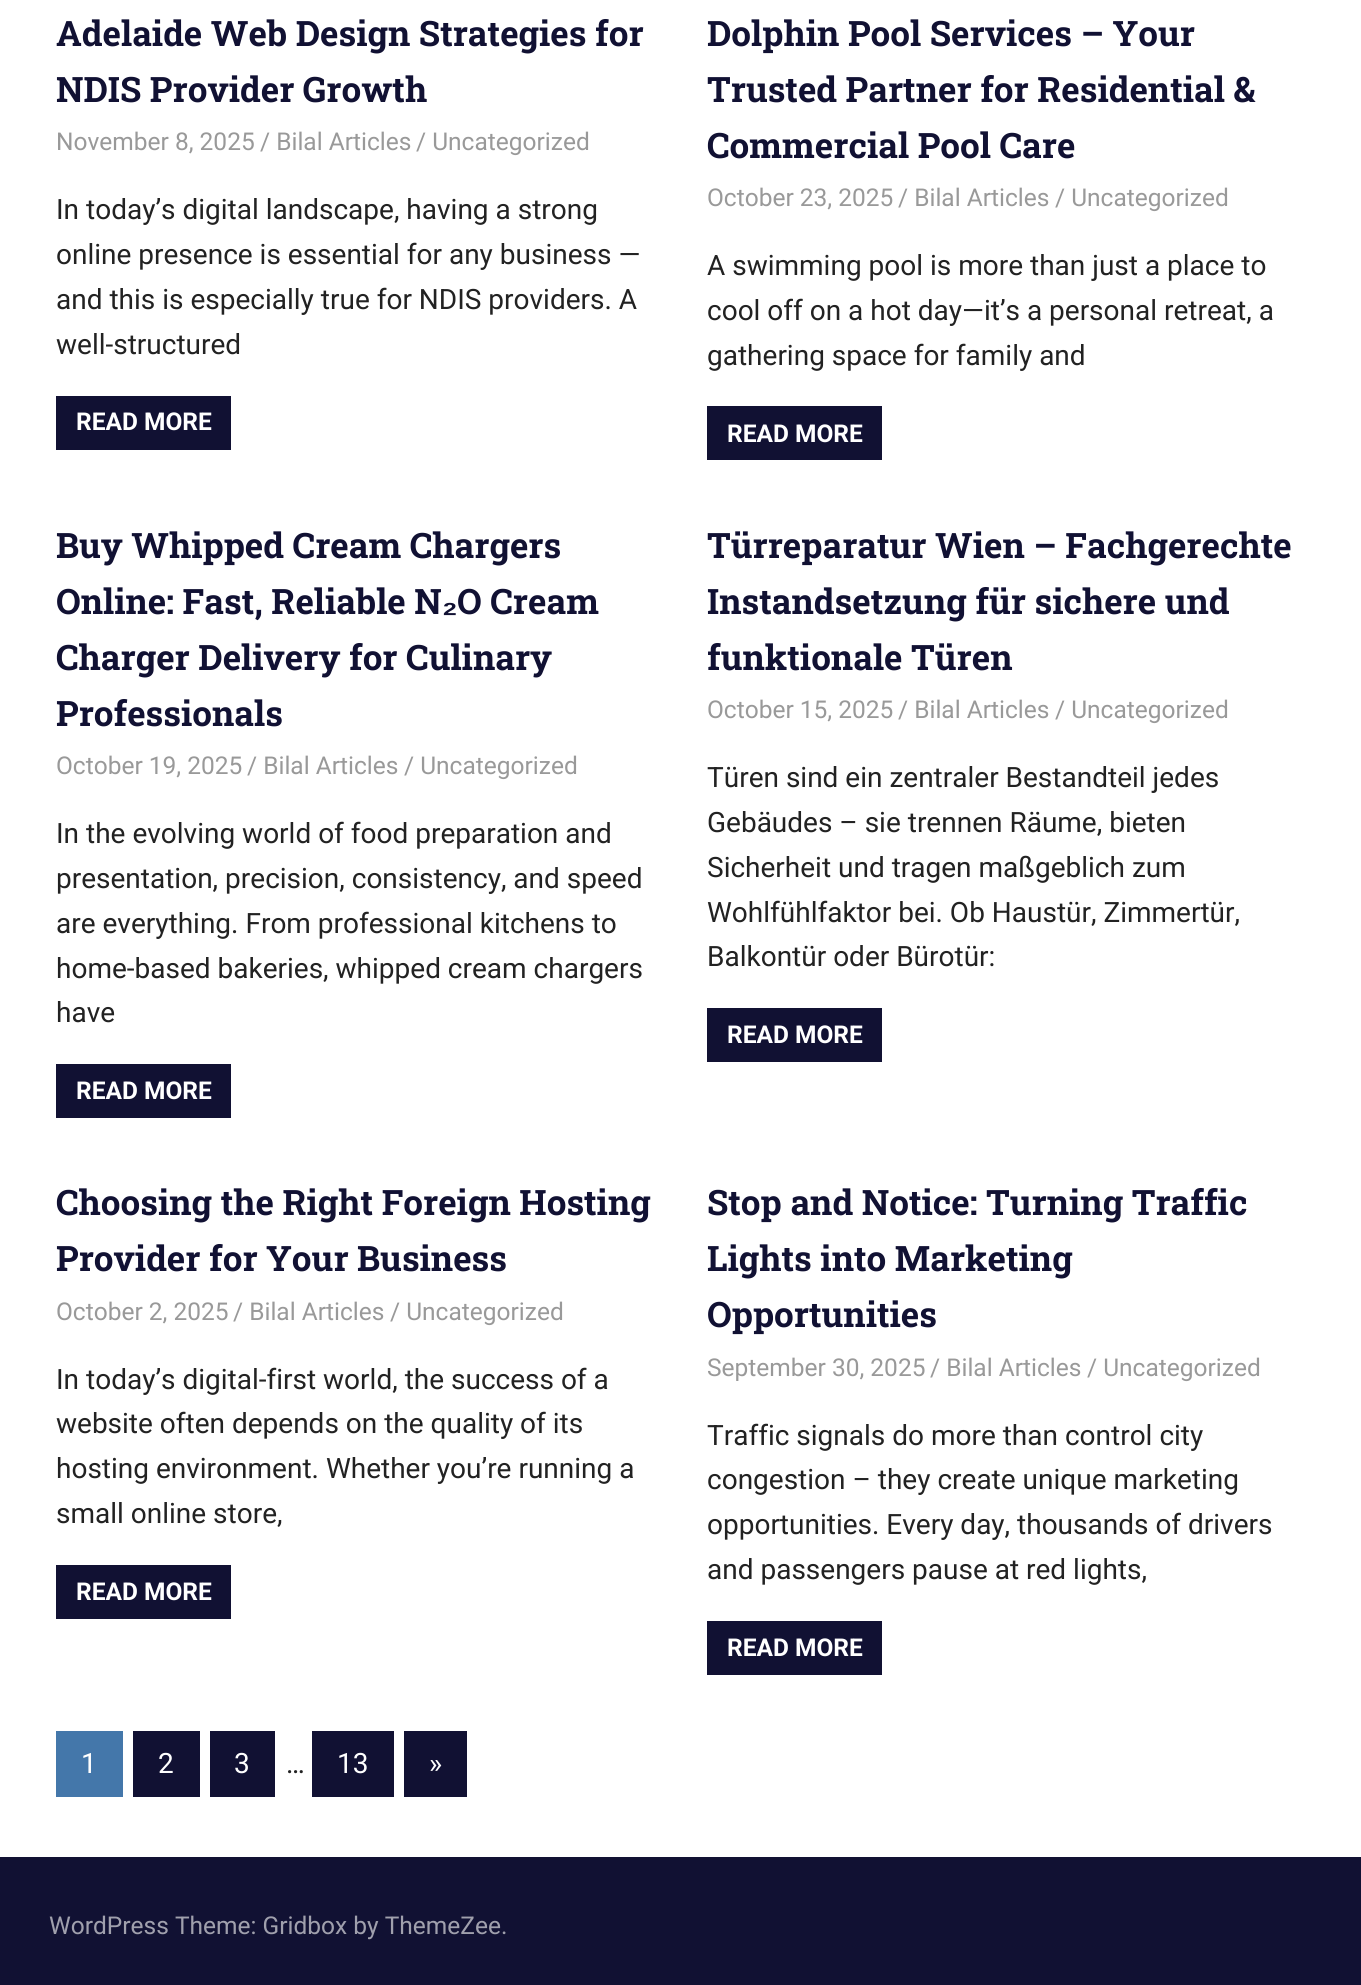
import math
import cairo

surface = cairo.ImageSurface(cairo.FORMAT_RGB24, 1361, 1985)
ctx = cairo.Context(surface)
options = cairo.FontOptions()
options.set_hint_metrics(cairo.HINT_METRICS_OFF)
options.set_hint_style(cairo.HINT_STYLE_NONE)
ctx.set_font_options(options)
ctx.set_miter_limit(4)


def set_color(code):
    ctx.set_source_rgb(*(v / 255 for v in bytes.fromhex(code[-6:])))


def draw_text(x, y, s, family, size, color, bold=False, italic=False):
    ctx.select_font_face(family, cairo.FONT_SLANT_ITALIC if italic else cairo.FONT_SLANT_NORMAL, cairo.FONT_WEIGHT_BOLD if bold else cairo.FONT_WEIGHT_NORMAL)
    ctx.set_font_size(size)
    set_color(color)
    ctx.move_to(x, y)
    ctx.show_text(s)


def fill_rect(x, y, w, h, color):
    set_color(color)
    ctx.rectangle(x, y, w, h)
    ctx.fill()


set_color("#ffffff")
ctx.paint()
draw_text(56, 46, "Adelaide Web Design Strategies for", "Roboto Slab", 35, "#111133", bold=True)
draw_text(56, 102, "NDIS Provider Growth", "Roboto Slab", 35, "#111133", bold=True)
draw_text(56, 150, "November 8, 2025", "Roboto", 24.5, "#999999")
draw_text(260, 150, "/ Bilal Articles", "Roboto", 24.5, "#999999")
draw_text(416, 150, "/ Uncategorized", "Roboto", 24.5, "#999999")
draw_text(56, 219, "In today’s digital landscape, having a strong", "Roboto", 28, "#222222")
draw_text(56, 264, "online presence is essential for any business —", "Roboto", 28, "#222222")
draw_text(56, 309, "and this is especially true for NDIS providers. A", "Roboto", 28, "#222222")
draw_text(56, 354, "well-structured", "Roboto", 28, "#222222")
fill_rect(56, 396, 175, 54, "#111133")
draw_text(76, 430, "READ MORE", "Roboto", 24.5, "#ffffff", bold=True)
draw_text(707, 46, "Dolphin Pool Services – Your", "Roboto Slab", 35, "#111133", bold=True)
draw_text(707, 102, "Trusted Partner for Residential &", "Roboto Slab", 35, "#111133", bold=True)
draw_text(707, 158, "Commercial Pool Care", "Roboto Slab", 35, "#111133", bold=True)
draw_text(707, 206, "October 23, 2025", "Roboto", 24.5, "#999999")
draw_text(898, 206, "/ Bilal Articles", "Roboto", 24.5, "#999999")
draw_text(1055, 206, "/ Uncategorized", "Roboto", 24.5, "#999999")
draw_text(707, 275, "A swimming pool is more than just a place to", "Roboto", 28, "#222222")
draw_text(707, 320, "cool off on a hot day—it’s a personal retreat, a", "Roboto", 28, "#222222")
draw_text(707, 365, "gathering space for family and", "Roboto", 28, "#222222")
fill_rect(707, 406, 175, 54, "#111133")
draw_text(727, 442, "READ MORE", "Roboto", 24.5, "#ffffff", bold=True)
draw_text(56, 558, "Buy Whipped Cream Chargers", "Roboto Slab", 35, "#111133", bold=True)
draw_text(56, 614, "Online: Fast, Reliable N", "Roboto Slab", 35, "#111133", bold=True)
draw_text(442, 614, "₂", "Liberation Sans", 35, "#111133", bold=True)
draw_text(457, 614, "O Cream", "Roboto Slab", 35, "#111133", bold=True)
draw_text(56, 670, "Charger Delivery for Culinary", "Roboto Slab", 35, "#111133", bold=True)
draw_text(56, 726, "Professionals", "Roboto Slab", 35, "#111133", bold=True)
draw_text(56, 774, "October 19, 2025", "Roboto", 24.5, "#999999")
draw_text(247, 774, "/ Bilal Articles", "Roboto", 24.5, "#999999")
draw_text(404, 774, "/ Uncategorized", "Roboto", 24.5, "#999999")
draw_text(56, 843, "In the evolving world of food preparation and", "Roboto", 28, "#222222")
draw_text(56, 888, "presentation, precision, consistency, and speed", "Roboto", 28, "#222222")
draw_text(56, 933, "are everything. From professional kitchens to", "Roboto", 28, "#222222")
draw_text(56, 978, "home-based bakeries, whipped cream chargers", "Roboto", 28, "#222222")
draw_text(56, 1022, "have", "Roboto", 28, "#222222")
fill_rect(56, 1064, 175, 54, "#111133")
draw_text(76, 1099, "READ MORE", "Roboto", 24.5, "#ffffff", bold=True)
draw_text(707, 558, "Türreparatur Wien – Fachgerechte", "Roboto Slab", 35, "#111133", bold=True)
draw_text(707, 614, "Instandsetzung für sichere und", "Roboto Slab", 35, "#111133", bold=True)
draw_text(707, 670, "funktionale Türen", "Roboto Slab", 35, "#111133", bold=True)
draw_text(707, 718, "October 15, 2025", "Roboto", 24.5, "#999999")
draw_text(898, 718, "/ Bilal Articles", "Roboto", 24.5, "#999999")
draw_text(1055, 718, "/ Uncategorized", "Roboto", 24.5, "#999999")
draw_text(707, 787, "Türen sind ein zentraler Bestandteil jedes", "Roboto", 28, "#222222")
draw_text(707, 832, "Gebäudes – sie trennen Räume, bieten", "Roboto", 28, "#222222")
draw_text(707, 877, "Sicherheit und tragen maßgeblich zum", "Roboto", 28, "#222222")
draw_text(707, 922, "Wohlfühlfaktor bei. Ob Haustür, Zimmertür,", "Roboto", 28, "#222222")
draw_text(707, 966, "Balkontür oder Bürotür:", "Roboto", 28, "#222222")
fill_rect(707, 1008, 175, 54, "#111133")
draw_text(727, 1043, "READ MORE", "Roboto", 24.5, "#ffffff", bold=True)
draw_text(56, 1215, "Choosing the Right Foreign Hosting", "Roboto Slab", 35, "#111133", bold=True)
draw_text(56, 1271, "Provider for Your Business", "Roboto Slab", 35, "#111133", bold=True)
draw_text(56, 1320, "October 2, 2025", "Roboto", 24.5, "#999999")
draw_text(233, 1320, "/ Bilal Articles", "Roboto", 24.5, "#999999")
draw_text(390, 1320, "/ Uncategorized", "Roboto", 24.5, "#999999")
draw_text(56, 1389, "In today’s digital-first world, the success of a", "Roboto", 28, "#222222")
draw_text(56, 1433, "website often depends on the quality of its", "Roboto", 28, "#222222")
draw_text(56, 1478, "hosting environment. Whether you’re running a", "Roboto", 28, "#222222")
draw_text(56, 1523, "small online store,", "Roboto", 28, "#222222")
fill_rect(56, 1565, 175, 54, "#111133")
draw_text(76, 1600, "READ MORE", "Roboto", 24.5, "#ffffff", bold=True)
draw_text(707, 1215, "Stop and Notice: Turning Traffic", "Roboto Slab", 35, "#111133", bold=True)
draw_text(707, 1271, "Lights into Marketing", "Roboto Slab", 35, "#111133", bold=True)
draw_text(707, 1327, "Opportunities", "Roboto Slab", 35, "#111133", bold=True)
draw_text(707, 1376, "September 30, 2025", "Roboto", 24.5, "#999999")
draw_text(930, 1376, "/ Bilal Articles", "Roboto", 24.5, "#999999")
draw_text(1087, 1376, "/ Uncategorized", "Roboto", 24.5, "#999999")
draw_text(707, 1445, "Traffic signals do more than control city", "Roboto", 28, "#222222")
draw_text(707, 1489, "congestion – they create unique marketing", "Roboto", 28, "#222222")
draw_text(707, 1534, "opportunities. Every day, thousands of drivers", "Roboto", 28, "#222222")
draw_text(707, 1579, "and passengers pause at red lights,", "Roboto", 28, "#222222")
fill_rect(707, 1621, 175, 54, "#111133")
draw_text(727, 1656, "READ MORE", "Roboto", 24.5, "#ffffff", bold=True)
fill_rect(56, 1731, 67, 66, "#4477aa")
draw_text(81, 1773, "1", "Roboto", 28, "#ffffff")
fill_rect(133, 1731, 67, 66, "#111133")
draw_text(158, 1773, "2", "Roboto", 28, "#ffffff")
fill_rect(210, 1731, 65, 66, "#111133")
draw_text(234, 1773, "3", "Roboto", 28, "#ffffff")
fill_rect(312, 1731, 82, 66, "#111133")
draw_text(337, 1773, "13", "Roboto", 28, "#ffffff")
fill_rect(404, 1731, 63, 66, "#111133")
draw_text(429, 1773, "»", "Roboto", 28, "#ffffff")
draw_text(286, 1773, "…", "Roboto", 28, "#222222")
fill_rect(0, 1857, 1361, 128, "#111133")
draw_text(49, 1934, "WordPress Theme: Gridbox by ThemeZee.", "Roboto", 24.5, "#a0a0ad")
surface.write_to_png("output.png")
